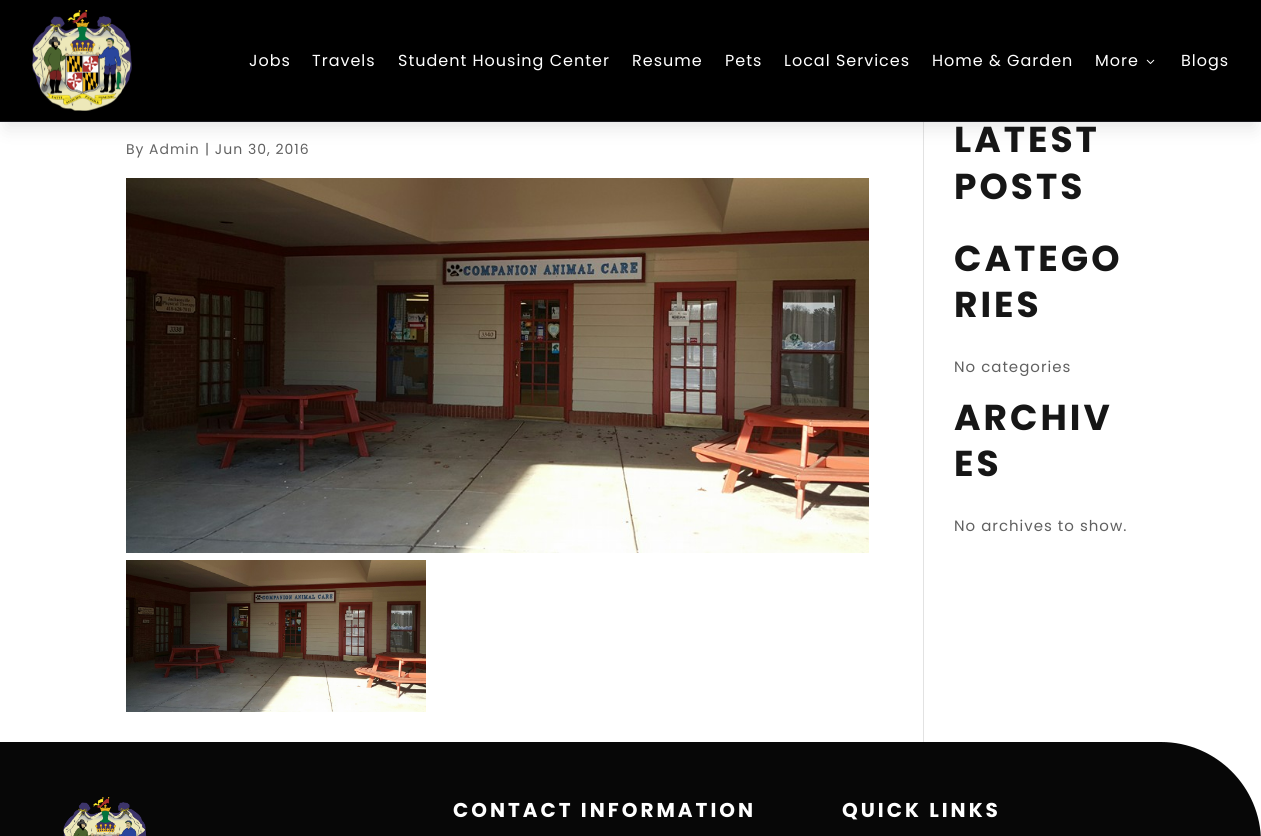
import math
import cairo

surface = cairo.ImageSurface(cairo.FORMAT_RGB24, 1261, 836)
ctx = cairo.Context(surface)
options = cairo.FontOptions()
options.set_hint_metrics(cairo.HINT_METRICS_OFF)
options.set_hint_style(cairo.HINT_STYLE_NONE)
ctx.set_font_options(options)
ctx.set_miter_limit(4)


def set_color(code):
    ctx.set_source_rgb(*(v / 255 for v in bytes.fromhex(code[-6:])))


def draw_spaced(x, y, s, letter, word):
    ctx.move_to(x, y)
    for ch in s:
        ctx.show_text(ch)
        ctx.rel_move_to(letter + word * (ch == ' '), 0)


def fill_rect(x, y, w, h, color):
    set_color(color)
    ctx.rectangle(x, y, w, h)
    ctx.fill()


def rounded_rect(x, y, w, h, r):
    ctx.new_sub_path()
    for i, (u, v) in enumerate([(x + w - r, y + h - r), (x + r, y + h - r), (x + r, y + r), (x + w - r, y + r)]):
        ctx.arc(u, v, r, i * math.pi / 2, (i + 1) * math.pi / 2)
    ctx.close_path()


def draw_shadow(x, y, w, h, r, blur, alpha):
    ctx.push_group_with_content(cairo.CONTENT_ALPHA)
    ctx.set_operator(cairo.OPERATOR_SOURCE)
    for i in range(15, -16, -2):
        e = blur * i / 6
        if min(w, h) + 2 * e > 0:
            ctx.set_source_rgba(0, 0, 0, alpha * math.erfc((i - 1) / 8.5) / 2)
            rounded_rect(x - e, y - e, w + 2 * e, h + 2 * e, max(0, min(r + e + blur * .6, min(w, h) / 2 + e)))
            ctx.fill()
    ctx.mask(ctx.pop_group())


def draw_image(path, x, y, w, h):
    ctx.save()
    ctx.set_source_surface(cairo.ImageSurface.create_from_png(path), x, y)
    ctx.rectangle(x, y, w, h)
    ctx.fill()
    ctx.restore()


set_color("#ffffff")
ctx.paint()
fill_rect(923, 122, 1, 620, "#e2e2e2")
set_color("#000000")
draw_shadow(6, 18, 1249, 110, 0, 9, 0.1)
fill_rect(0, 0, 1261, 121, "#000000")
fill_rect(0, 121, 1261, 1, "#1b1b21")
draw_image("assets/img1.png", 32, 10, 100, 101)
ctx.select_font_face("Poppins")
ctx.set_font_size(16)
set_color("#ffffff")
draw_spaced(249, 66, "Jobs", 1, 0)
draw_spaced(312, 66, "Travels", 1, 0)
draw_spaced(398, 66, "Student Housing Center", 1, 0)
draw_spaced(632, 66, "Resume", 1, 0)
draw_spaced(725, 66, "Pets", 1, 0)
draw_spaced(784, 66, "Local Services", 1, 0)
draw_spaced(932, 66, "Home & Garden", 1, 0)
draw_spaced(1095, 66, "More", 1, 0)
draw_image("assets/img2.png", 1146, 59, 9, 5)
draw_spaced(1181, 66, "Blogs", 1, 0)
ctx.set_font_size(14)
set_color("#606060")
draw_spaced(126, 154, "By", 1, 0)
set_color("#666666")
draw_spaced(149, 154, "Admin", 1, 0)
set_color("#606060")
draw_spaced(205, 154, "| Jun 30, 2016", 1, 0)
draw_image("assets/img3.png", 126, 178, 743, 375)
draw_image("assets/img4.png", 126, 560, 300, 152)
ctx.select_font_face("Poppins", cairo.FONT_SLANT_NORMAL, cairo.FONT_WEIGHT_BOLD)
ctx.set_font_size(36)
set_color("#161616")
draw_spaced(954, 152, "LATEST", 3, 0)
draw_spaced(954, 199, "POSTS", 3, 0)
draw_spaced(954, 271, "CATEGO", 3, 0)
draw_spaced(954, 317, "RIES", 3, 0)
ctx.select_font_face("Poppins")
ctx.set_font_size(15)
set_color("#606060")
draw_spaced(954, 372, "No categories", 1, 0)
ctx.select_font_face("Poppins", cairo.FONT_SLANT_NORMAL, cairo.FONT_WEIGHT_BOLD)
ctx.set_font_size(36)
set_color("#161616")
draw_spaced(954, 430, "ARCHIV", 3, 0)
draw_spaced(954, 476, "ES", 3, 0)
ctx.select_font_face("Poppins")
ctx.set_font_size(15)
set_color("#606060")
draw_spaced(954, 531, "No archives to show.", 1, 0)
set_color("#070707")
ctx.new_path()
ctx.move_to(0, 742)
ctx.line_to(1161, 742)
ctx.curve_to(1216, 742, 1261, 787, 1261, 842)
ctx.line_to(1261, 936)
ctx.line_to(0, 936)
ctx.close_path()
ctx.fill()
draw_image("assets/img5.png", 63, 797, 84, 39)
ctx.select_font_face("Poppins", cairo.FONT_SLANT_NORMAL, cairo.FONT_WEIGHT_BOLD)
ctx.set_font_size(20)
set_color("#ffffff")
draw_spaced(453, 817, "CONTACT INFORMATION", 3, 0)
draw_spaced(842, 817, "QUICK LINKS", 3, 0)
surface.write_to_png("output.png")
